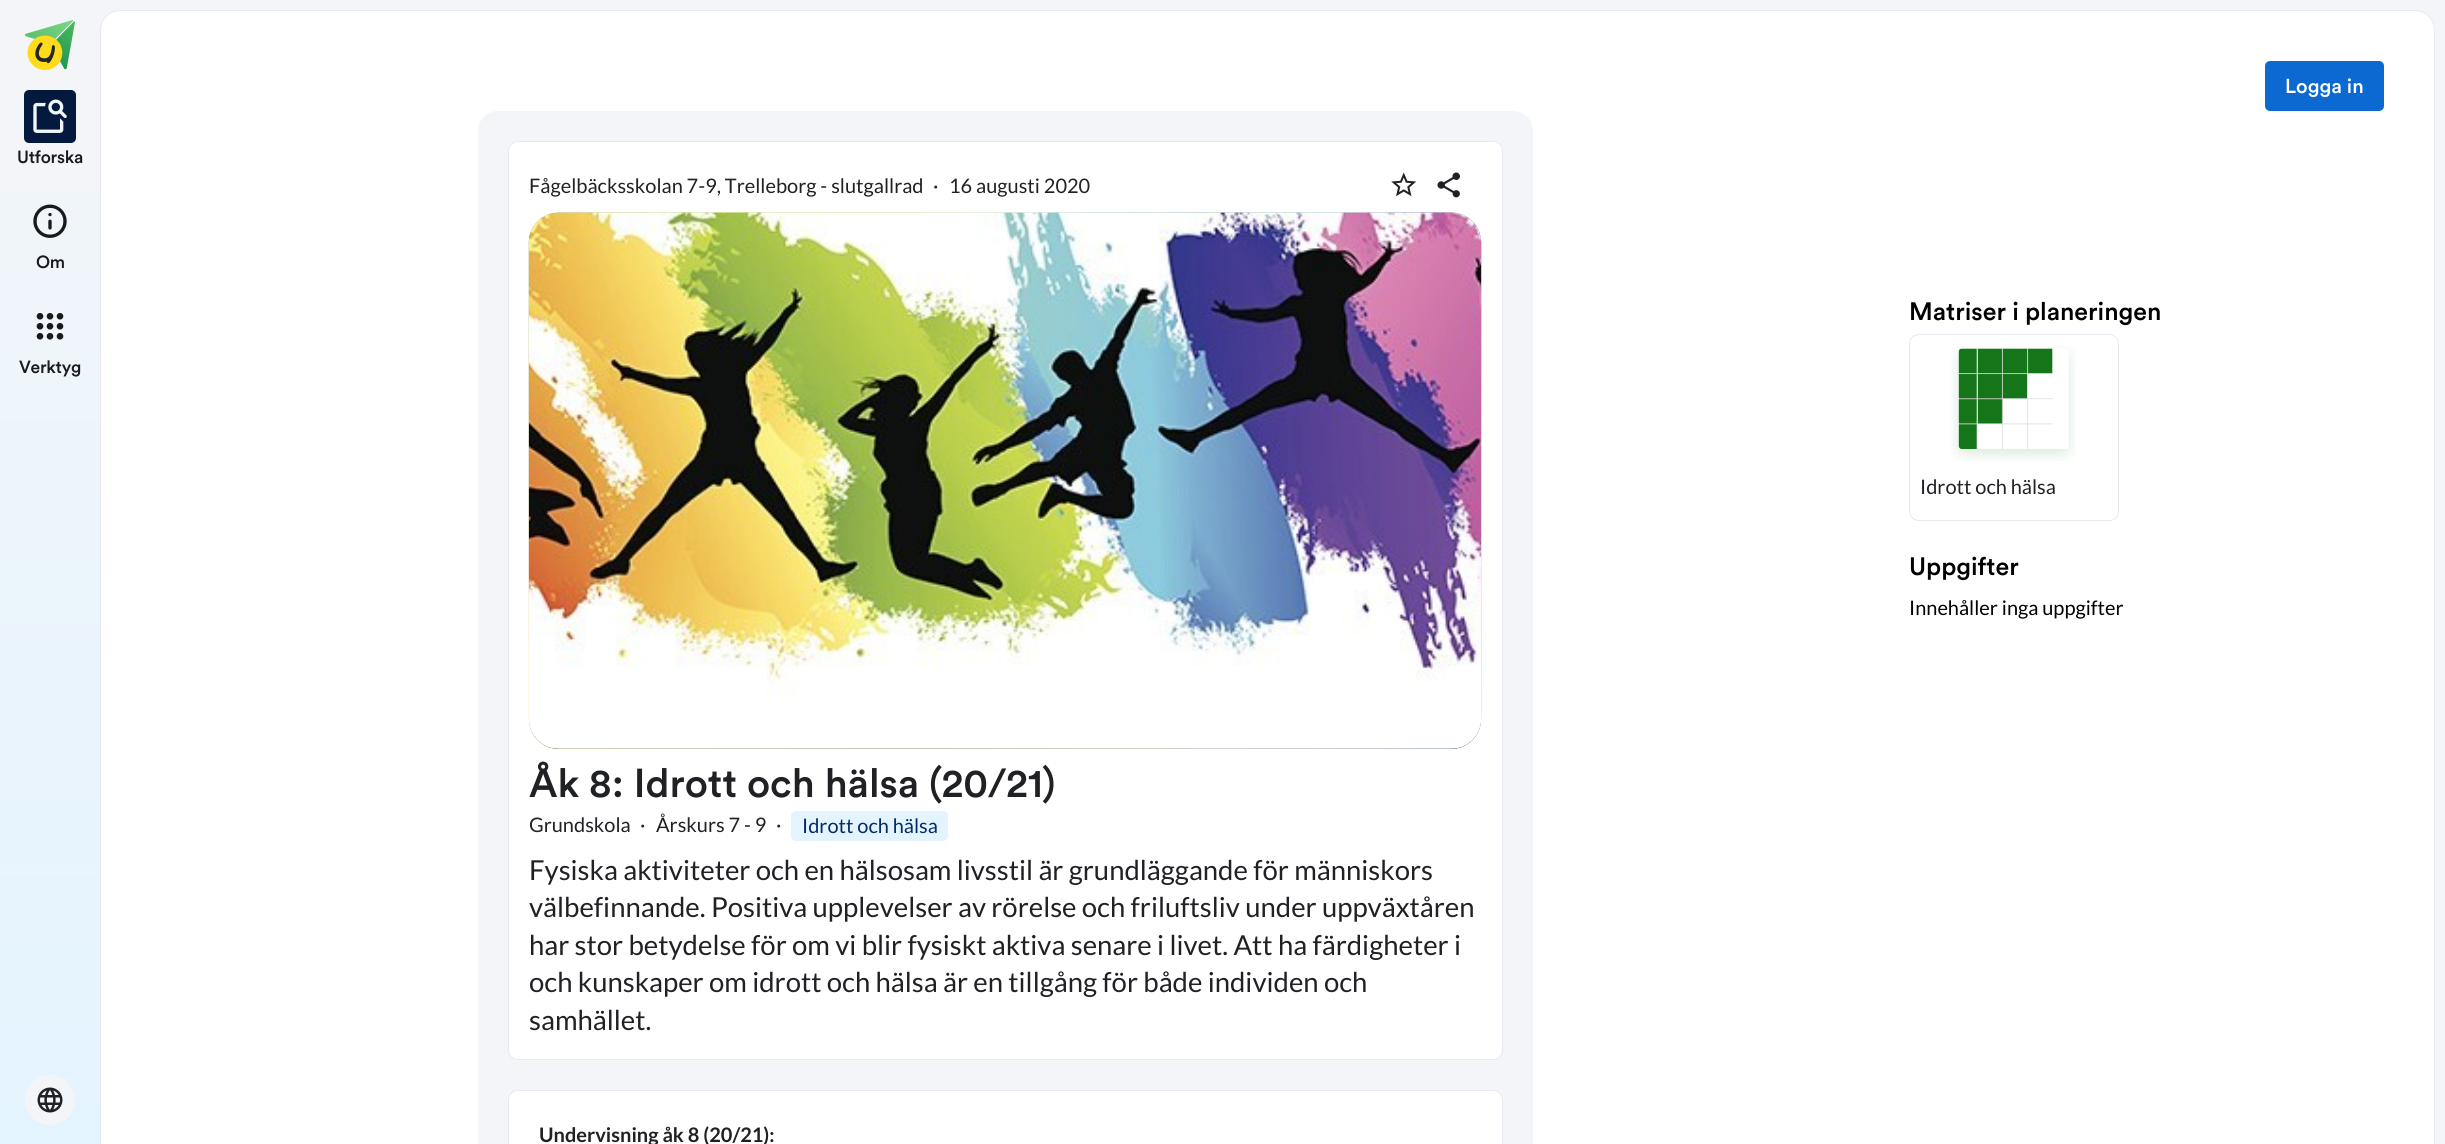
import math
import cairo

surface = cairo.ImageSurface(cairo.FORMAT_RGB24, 2445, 1144)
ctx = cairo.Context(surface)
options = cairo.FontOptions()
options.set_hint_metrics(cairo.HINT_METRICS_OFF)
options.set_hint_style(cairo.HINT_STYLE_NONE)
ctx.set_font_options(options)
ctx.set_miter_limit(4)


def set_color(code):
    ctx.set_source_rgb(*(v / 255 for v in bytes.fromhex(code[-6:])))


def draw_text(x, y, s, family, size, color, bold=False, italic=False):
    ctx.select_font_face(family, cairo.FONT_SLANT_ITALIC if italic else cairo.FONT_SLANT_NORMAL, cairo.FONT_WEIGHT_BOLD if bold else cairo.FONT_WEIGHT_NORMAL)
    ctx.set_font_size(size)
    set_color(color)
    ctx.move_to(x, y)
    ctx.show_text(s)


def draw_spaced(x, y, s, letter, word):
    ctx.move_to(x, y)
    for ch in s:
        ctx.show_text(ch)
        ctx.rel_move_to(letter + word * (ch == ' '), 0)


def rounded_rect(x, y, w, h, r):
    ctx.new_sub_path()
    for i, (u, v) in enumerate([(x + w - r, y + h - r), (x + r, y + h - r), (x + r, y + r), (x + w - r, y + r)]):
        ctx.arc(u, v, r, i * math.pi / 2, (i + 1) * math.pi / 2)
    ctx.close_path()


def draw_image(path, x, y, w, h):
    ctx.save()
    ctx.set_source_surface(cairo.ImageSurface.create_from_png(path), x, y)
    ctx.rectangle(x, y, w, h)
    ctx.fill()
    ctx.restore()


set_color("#f3f5f9")
ctx.paint()
gradient = cairo.LinearGradient(50, 0, 50, 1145)
gradient.add_color_stop_rgba(0, 0.953, 0.961, 0.976, 1)
gradient.add_color_stop_rgba(1, 0.894, 0.957, 1, 1)
ctx.set_source(gradient)
ctx.rectangle(0, 191, 100, 953)
ctx.fill()
draw_image("assets/img1.png", 25, 20, 50, 50)
set_color("#031a3e")
rounded_rect(24, 90, 52, 53, 5)
ctx.fill()
draw_image("assets/img2.png", 33, 99, 34, 34)
ctx.select_font_face("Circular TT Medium")
ctx.set_font_size(17.5)
set_color("#181a1d")
draw_spaced(17, 163, "Utforska", -0.25, 0)
draw_image("assets/img3.png", 33, 204, 34, 34)
draw_spaced(36, 268, "Om", -0.25, 0)
draw_image("assets/img4.png", 36, 313, 28, 27)
draw_spaced(19, 373, "Verktyg", -0.25, 0)
set_color("#f3f5f9")
ctx.new_path()
ctx.arc(50, 1100, 25, 0, 2 * math.pi)
ctx.fill()
draw_image("assets/img5.png", 37, 1087, 26, 26)
set_color("#ffffff")
rounded_rect(100.5, 10.5, 2334, 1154, 19.5)
ctx.fill_preserve()
set_color("#e6e9f0")
ctx.set_line_width(1)
ctx.stroke()
set_color("#0c69d2")
rounded_rect(2265, 61, 119, 50, 5)
ctx.fill()
draw_text(2285, 93, "Logga in", "Circular TT Medium", 20, "#ffffff")
set_color("#f3f5f9")
rounded_rect(478, 111, 1055, 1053, 20)
ctx.fill()
set_color("#ffffff")
rounded_rect(508.5, 141.5, 994, 918, 9.5)
ctx.fill_preserve()
set_color("#e6e9f0")
ctx.stroke()
draw_text(529, 193, "Fågelbäcksskolan 7-9, Trelleborg - slutgallrad", "Lato", 20, "#1f2124")
draw_text(933, 193, "·", "Lato", 20, "#1f2124")
draw_text(949, 193, "16 augusti 2020", "Lato", 20, "#1f2124")
draw_image("assets/img6.png", 1391, 172, 26, 25)
draw_image("assets/img7.png", 1437, 172, 23, 26)
set_color("#111111")
rounded_rect(529, 213, 952, 536, 30)
ctx.fill()
draw_image("assets/img8.png", 528, 212, 954, 537)
draw_image("assets/img9.png", 528, 212, 954, 537)
draw_text(529, 797, "Åk 8: Idrott och hälsa (20/21)", "Circular TT Medium", 40, "#1f2124")
draw_text(529, 832, "Grundskola", "Lato", 20, "#1f2124")
draw_text(640, 832, "·", "Lato", 20, "#1f2124")
draw_text(656, 832, "Årskurs 7 - 9", "Lato", 20, "#1f2124")
draw_text(776, 832, "·", "Lato", 20, "#1f2124")
set_color("#e4f4ff")
rounded_rect(791, 811, 157, 30, 5)
ctx.fill()
draw_text(802, 833, "Idrott och hälsa", "Lato", 20, "#042a65")
draw_text(529, 880, "Fysiska aktiviteter och en hälsosam livsstil är grundläggande för människors", "Lato", 27.5, "#1f2124")
draw_text(529, 917, "välbefinnande. Positiva upplevelser av rörelse och friluftsliv under uppväxtåren", "Lato", 27.5, "#1f2124")
draw_text(529, 955, "har stor betydelse för om vi blir fysiskt aktiva senare i livet. Att ha färdigheter i", "Lato", 27.5, "#1f2124")
draw_text(529, 992, "och kunskaper om idrott och hälsa är en tillgång för både individen och", "Lato", 27.5, "#1f2124")
draw_text(529, 1030, "samhället.", "Lato", 27.5, "#1f2124")
set_color("#ffffff")
rounded_rect(508.5, 1090.5, 994, 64, 9.5)
ctx.fill_preserve()
set_color("#e6e9f0")
ctx.stroke()
draw_text(539, 1142, "Undervisning åk 8 (20/21):", "Lato", 20, "#1f2124", bold=True)
draw_text(1909, 320, "Matriser i planeringen", "Circular TT Medium", 25, "#000000")
rounded_rect(1909.5, 334.5, 209, 186, 9.5)
set_color("#e6e9f0")
ctx.stroke()
draw_image("assets/img10.png", 1951, 346, 125, 115)
draw_text(1920, 494, "Idrott och hälsa", "Lato", 20, "#1f2124")
draw_text(1909, 575, "Uppgifter", "Circular TT Medium", 25, "#000000")
draw_text(1909, 615, "Innehåller inga uppgifter", "Lato", 20, "#000000")
surface.write_to_png("output.png")
